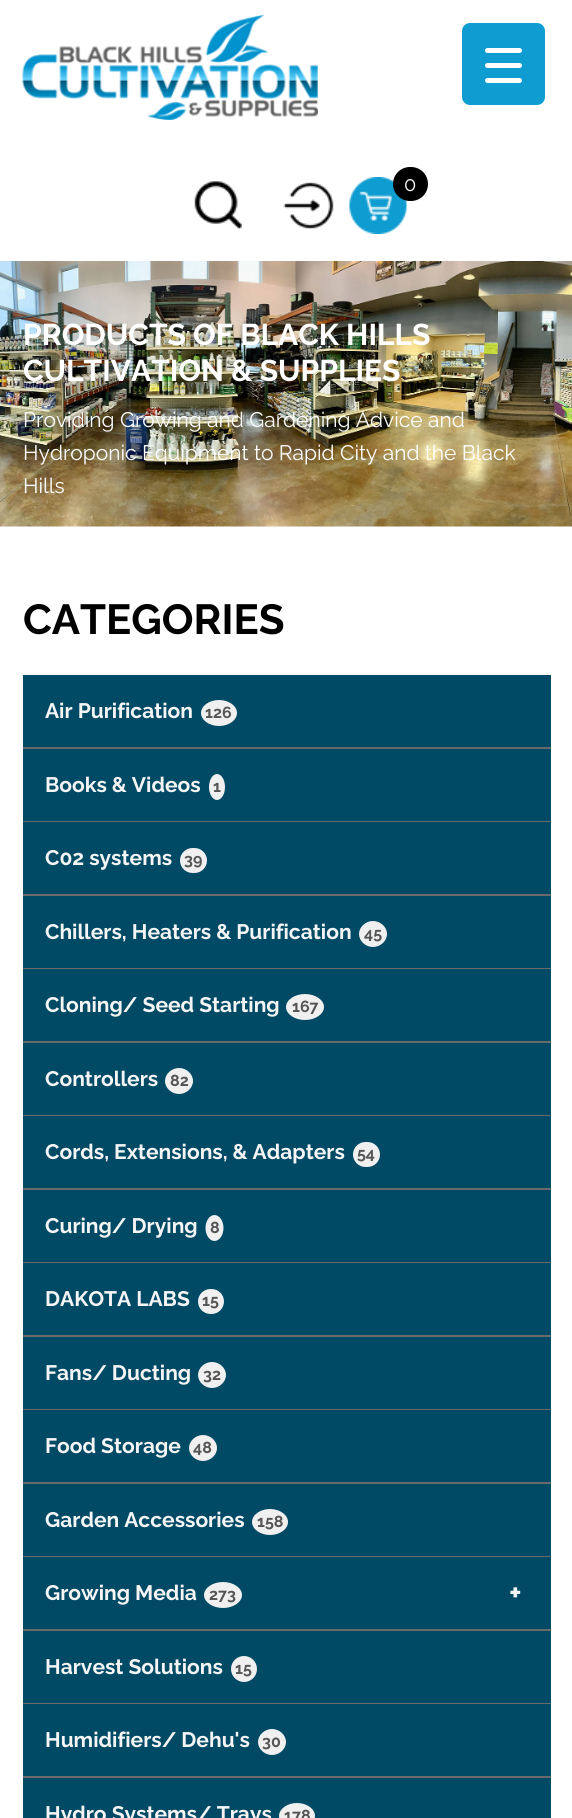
import math
import cairo

surface = cairo.ImageSurface(cairo.FORMAT_RGB24, 572, 1818)
ctx = cairo.Context(surface)
options = cairo.FontOptions()
options.set_hint_metrics(cairo.HINT_METRICS_OFF)
options.set_hint_style(cairo.HINT_STYLE_NONE)
ctx.set_font_options(options)
ctx.set_miter_limit(4)


def set_color(code):
    ctx.set_source_rgb(*(v / 255 for v in bytes.fromhex(code[-6:])))


def draw_text(x, y, s, family, size, color, bold=False, italic=False):
    ctx.select_font_face(family, cairo.FONT_SLANT_ITALIC if italic else cairo.FONT_SLANT_NORMAL, cairo.FONT_WEIGHT_BOLD if bold else cairo.FONT_WEIGHT_NORMAL)
    ctx.set_font_size(size)
    set_color(color)
    ctx.move_to(x, y)
    ctx.show_text(s)


def fill_rect(x, y, w, h, color):
    set_color(color)
    ctx.rectangle(x, y, w, h)
    ctx.fill()


def rounded_rect(x, y, w, h, r):
    ctx.new_sub_path()
    for i, (u, v) in enumerate([(x + w - r, y + h - r), (x + r, y + h - r), (x + r, y + r), (x + w - r, y + r)]):
        ctx.arc(u, v, r, i * math.pi / 2, (i + 1) * math.pi / 2)
    ctx.close_path()


def draw_image(path, x, y, w, h):
    ctx.save()
    ctx.set_source_surface(cairo.ImageSurface.create_from_png(path), x, y)
    ctx.rectangle(x, y, w, h)
    ctx.fill()
    ctx.restore()


set_color("#ffffff")
ctx.paint()
set_color("#0f9cd1")
rounded_rect(462, 23, 83, 82, 8)
ctx.fill()
set_color("#ffffff")
rounded_rect(485, 63, 37, 5, 2.5)
ctx.fill()
rounded_rect(485, 48, 37, 5, 2.5)
ctx.fill()
rounded_rect(485, 78, 37, 5, 2.5)
ctx.fill()
draw_image("assets/img1.png", 22, 15, 296, 105)
draw_image("assets/img2.png", 194, 181, 48, 48)
draw_image("assets/img3.png", 283, 182, 51, 47)
draw_image("assets/img4.png", 349, 177, 58, 57)
set_color("#000000")
rounded_rect(393, 167, 35, 34, 17)
ctx.fill()
draw_text(404, 191, "0", "Raleway", 20, "#ffffff")
draw_image("assets/img5.png", 0, 261, 572, 266)
draw_text(23, 345, "PRODUCTS OF BLACK HILLS", "Raleway", 30, "#ffffff", bold=True)
draw_text(23, 381, "CULTIVATION & SUPPLIES", "Raleway", 30, "#ffffff", bold=True)
draw_text(23, 427, "Providing Growing and Gardening Advice and", "Raleway", 21, "#ffffff")
draw_text(23, 460, "Hydroponic Equipment to Rapid City and the Black", "Raleway", 21, "#ffffff")
draw_text(23, 493, "Hills", "Raleway", 21, "#ffffff")
draw_text(23, 634, "CATEGORIES", "Raleway", 42, "#000000", bold=True)
fill_rect(23, 675, 528, 72, "#014a65")
fill_rect(23, 747, 528, 2, "#6a6a6a")
draw_text(45, 718, "Air Purification", "Raleway", 21, "#f5f5f5", bold=True)
set_color("#f0f0f0")
ctx.new_path()
ctx.move_to(219, 700)
ctx.curve_to(229, 700, 237, 706, 237, 713)
ctx.curve_to(237, 720, 229, 726, 219, 726)
ctx.curve_to(209, 726, 201, 720, 201, 713)
ctx.curve_to(201, 706, 209, 700, 219, 700)
ctx.close_path()
ctx.fill()
draw_text(205, 718, "126", "Raleway", 16, "#555555", bold=True)
fill_rect(23, 749, 528, 72, "#014a65")
fill_rect(23, 821, 528, 1, "#6a6a6a")
draw_text(45, 792, "Books & Videos", "Raleway", 21, "#f5f5f5", bold=True)
set_color("#f0f0f0")
ctx.new_path()
ctx.move_to(217, 774)
ctx.curve_to(221.5, 774, 225, 780, 225, 787)
ctx.curve_to(225, 794, 221.5, 800, 217, 800)
ctx.curve_to(212.5, 800, 209, 794, 209, 787)
ctx.curve_to(209, 780, 212.5, 774, 217, 774)
ctx.close_path()
ctx.fill()
draw_text(213, 792, "1", "Raleway", 16, "#555555", bold=True)
fill_rect(23, 822, 528, 72, "#014a65")
fill_rect(23, 894, 528, 2, "#6a6a6a")
draw_text(45, 865, "C02 systems", "Raleway", 21, "#f5f5f5", bold=True)
set_color("#f0f0f0")
rounded_rect(180, 848, 27, 25, 12.5)
ctx.fill()
draw_text(184, 865, "39", "Raleway", 16, "#555555", bold=True)
fill_rect(23, 896, 528, 72, "#014a65")
fill_rect(23, 968, 528, 1, "#6a6a6a")
draw_text(45, 939, "Chillers, Heaters & Purification", "Raleway", 21, "#f5f5f5", bold=True)
set_color("#f0f0f0")
ctx.new_path()
ctx.move_to(373, 921)
ctx.curve_to(380.5, 921, 387, 927, 387, 934)
ctx.curve_to(387, 941, 380.5, 947, 373, 947)
ctx.curve_to(365.5, 947, 359, 941, 359, 934)
ctx.curve_to(359, 927, 365.5, 921, 373, 921)
ctx.close_path()
ctx.fill()
draw_text(364, 939, "45", "Raleway", 16, "#555555", bold=True)
fill_rect(23, 969, 528, 72, "#014a65")
fill_rect(23, 1041, 528, 2, "#6a6a6a")
draw_text(45, 1012, "Cloning/ Seed Starting", "Raleway", 21, "#f5f5f5", bold=True)
set_color("#f0f0f0")
ctx.new_path()
ctx.move_to(305, 994)
ctx.curve_to(315.5, 994, 324, 1000, 324, 1007)
ctx.curve_to(324, 1014, 315.5, 1020, 305, 1020)
ctx.curve_to(294.5, 1020, 286, 1014, 286, 1007)
ctx.curve_to(286, 1000, 294.5, 994, 305, 994)
ctx.close_path()
ctx.fill()
draw_text(292, 1012, "167", "Raleway", 16, "#555555", bold=True)
fill_rect(23, 1043, 528, 72, "#014a65")
fill_rect(23, 1115, 528, 1, "#6a6a6a")
draw_text(45, 1086, "Controllers", "Raleway", 21, "#f5f5f5", bold=True)
set_color("#f0f0f0")
ctx.new_path()
ctx.move_to(179, 1068)
ctx.curve_to(186.5, 1068, 193, 1074, 193, 1081)
ctx.curve_to(193, 1088, 186.5, 1094, 179, 1094)
ctx.curve_to(171.5, 1094, 165, 1088, 165, 1081)
ctx.curve_to(165, 1074, 171.5, 1068, 179, 1068)
ctx.close_path()
ctx.fill()
draw_text(170, 1086, "82", "Raleway", 16, "#555555", bold=True)
fill_rect(23, 1116, 528, 72, "#014a65")
fill_rect(23, 1188, 528, 2, "#6a6a6a")
draw_text(45, 1159, "Cords, Extensions, & Adapters", "Raleway", 21, "#f5f5f5", bold=True)
set_color("#f0f0f0")
rounded_rect(353, 1142, 27, 25, 12.5)
ctx.fill()
draw_text(357, 1159, "54", "Raleway", 16, "#555555", bold=True)
fill_rect(23, 1190, 528, 72, "#014a65")
fill_rect(23, 1262, 528, 1, "#6a6a6a")
draw_text(45, 1233, "Curing/ Drying", "Raleway", 21, "#f5f5f5", bold=True)
set_color("#f0f0f0")
ctx.new_path()
ctx.move_to(214.5, 1215)
ctx.curve_to(219.5, 1215, 223.5, 1221, 223.5, 1228)
ctx.curve_to(223.5, 1235, 219.5, 1241, 214.5, 1241)
ctx.curve_to(209.5, 1241, 205.5, 1235, 205.5, 1228)
ctx.curve_to(205.5, 1221, 209.5, 1215, 214.5, 1215)
ctx.close_path()
ctx.fill()
draw_text(210, 1233, "8", "Raleway", 16, "#555555", bold=True)
fill_rect(23, 1263, 528, 72, "#014a65")
fill_rect(23, 1335, 528, 2, "#6a6a6a")
draw_text(45, 1306, "DAKOTA LABS", "Raleway", 21, "#f5f5f5", bold=True)
set_color("#f0f0f0")
rounded_rect(198, 1289, 26, 25, 12.5)
ctx.fill()
draw_text(202, 1306, "15", "Raleway", 16, "#555555", bold=True)
fill_rect(23, 1337, 528, 72, "#014a65")
fill_rect(23, 1409, 528, 1, "#6a6a6a")
draw_text(45, 1380, "Fans/ Ducting", "Raleway", 21, "#f5f5f5", bold=True)
set_color("#f0f0f0")
ctx.new_path()
ctx.move_to(212, 1362)
ctx.curve_to(219.5, 1362, 226, 1368, 226, 1375)
ctx.curve_to(226, 1382, 219.5, 1388, 212, 1388)
ctx.curve_to(204.5, 1388, 198, 1382, 198, 1375)
ctx.curve_to(198, 1368, 204.5, 1362, 212, 1362)
ctx.close_path()
ctx.fill()
draw_text(203, 1380, "32", "Raleway", 16, "#555555", bold=True)
fill_rect(23, 1410, 528, 72, "#014a65")
fill_rect(23, 1482, 528, 2, "#6a6a6a")
draw_text(45, 1453, "Food Storage", "Raleway", 21, "#f5f5f5", bold=True)
set_color("#f0f0f0")
ctx.new_path()
ctx.move_to(203, 1435)
ctx.curve_to(210.5, 1435, 217, 1441, 217, 1448)
ctx.curve_to(217, 1455, 210.5, 1461, 203, 1461)
ctx.curve_to(195.5, 1461, 189, 1455, 189, 1448)
ctx.curve_to(189, 1441, 195.5, 1435, 203, 1435)
ctx.close_path()
ctx.fill()
draw_text(193, 1453, "48", "Raleway", 16, "#555555", bold=True)
fill_rect(23, 1484, 528, 72, "#014a65")
fill_rect(23, 1556, 528, 1, "#6a6a6a")
draw_text(45, 1527, "Garden Accessories", "Raleway", 21, "#f5f5f5", bold=True)
set_color("#f0f0f0")
ctx.new_path()
ctx.move_to(270, 1509)
ctx.curve_to(280, 1509, 288, 1515, 288, 1522)
ctx.curve_to(288, 1529, 280, 1535, 270, 1535)
ctx.curve_to(260, 1535, 252, 1529, 252, 1522)
ctx.curve_to(252, 1515, 260, 1509, 270, 1509)
ctx.close_path()
ctx.fill()
draw_text(257, 1527, "158", "Raleway", 16, "#555555", bold=True)
fill_rect(23, 1557, 528, 72, "#014a65")
fill_rect(23, 1629, 528, 2, "#6a6a6a")
draw_text(45, 1600, "Growing Media", "Raleway", 21, "#f5f5f5", bold=True)
set_color("#f0f0f0")
ctx.new_path()
ctx.move_to(223, 1582)
ctx.curve_to(233.5, 1582, 242, 1588, 242, 1595)
ctx.curve_to(242, 1602, 233.5, 1608, 223, 1608)
ctx.curve_to(212.5, 1608, 204, 1602, 204, 1595)
ctx.curve_to(204, 1588, 212.5, 1582, 223, 1582)
ctx.close_path()
ctx.fill()
draw_text(209, 1600, "273", "Raleway", 16, "#555555", bold=True)
draw_text(509, 1603, "+", "Raleway", 30, "#f5f5f5", bold=True)
fill_rect(23, 1631, 528, 72, "#014a65")
fill_rect(23, 1703, 528, 1, "#6a6a6a")
draw_text(45, 1674, "Harvest Solutions", "Raleway", 21, "#f5f5f5", bold=True)
set_color("#f0f0f0")
ctx.new_path()
ctx.arc(244, 1669, 13, 0, 2 * math.pi)
ctx.fill()
draw_text(235, 1674, "15", "Raleway", 16, "#555555", bold=True)
fill_rect(23, 1704, 528, 72, "#014a65")
fill_rect(23, 1776, 528, 2, "#6a6a6a")
draw_text(45, 1747, "Humidifiers/ Dehu's", "Raleway", 21, "#f5f5f5", bold=True)
set_color("#f0f0f0")
ctx.new_path()
ctx.move_to(272, 1729)
ctx.curve_to(279.5, 1729, 286, 1735, 286, 1742)
ctx.curve_to(286, 1749, 279.5, 1755, 272, 1755)
ctx.curve_to(264.5, 1755, 258, 1749, 258, 1742)
ctx.curve_to(258, 1735, 264.5, 1729, 272, 1729)
ctx.close_path()
ctx.fill()
draw_text(262, 1747, "30", "Raleway", 16, "#555555", bold=True)
fill_rect(23, 1778, 528, 40, "#014a65")
draw_text(45, 1821, "Hydro Systems/ Trays", "Raleway", 21, "#f5f5f5", bold=True)
set_color("#f0f0f0")
ctx.new_path()
ctx.move_to(297, 1803)
ctx.curve_to(307, 1803, 315, 1809, 315, 1816)
ctx.curve_to(315, 1823, 307, 1829, 297, 1829)
ctx.curve_to(287, 1829, 279, 1823, 279, 1816)
ctx.curve_to(279, 1809, 287, 1803, 297, 1803)
ctx.close_path()
ctx.fill()
draw_text(284, 1821, "178", "Raleway", 16, "#555555", bold=True)
surface.write_to_png("output.png")
